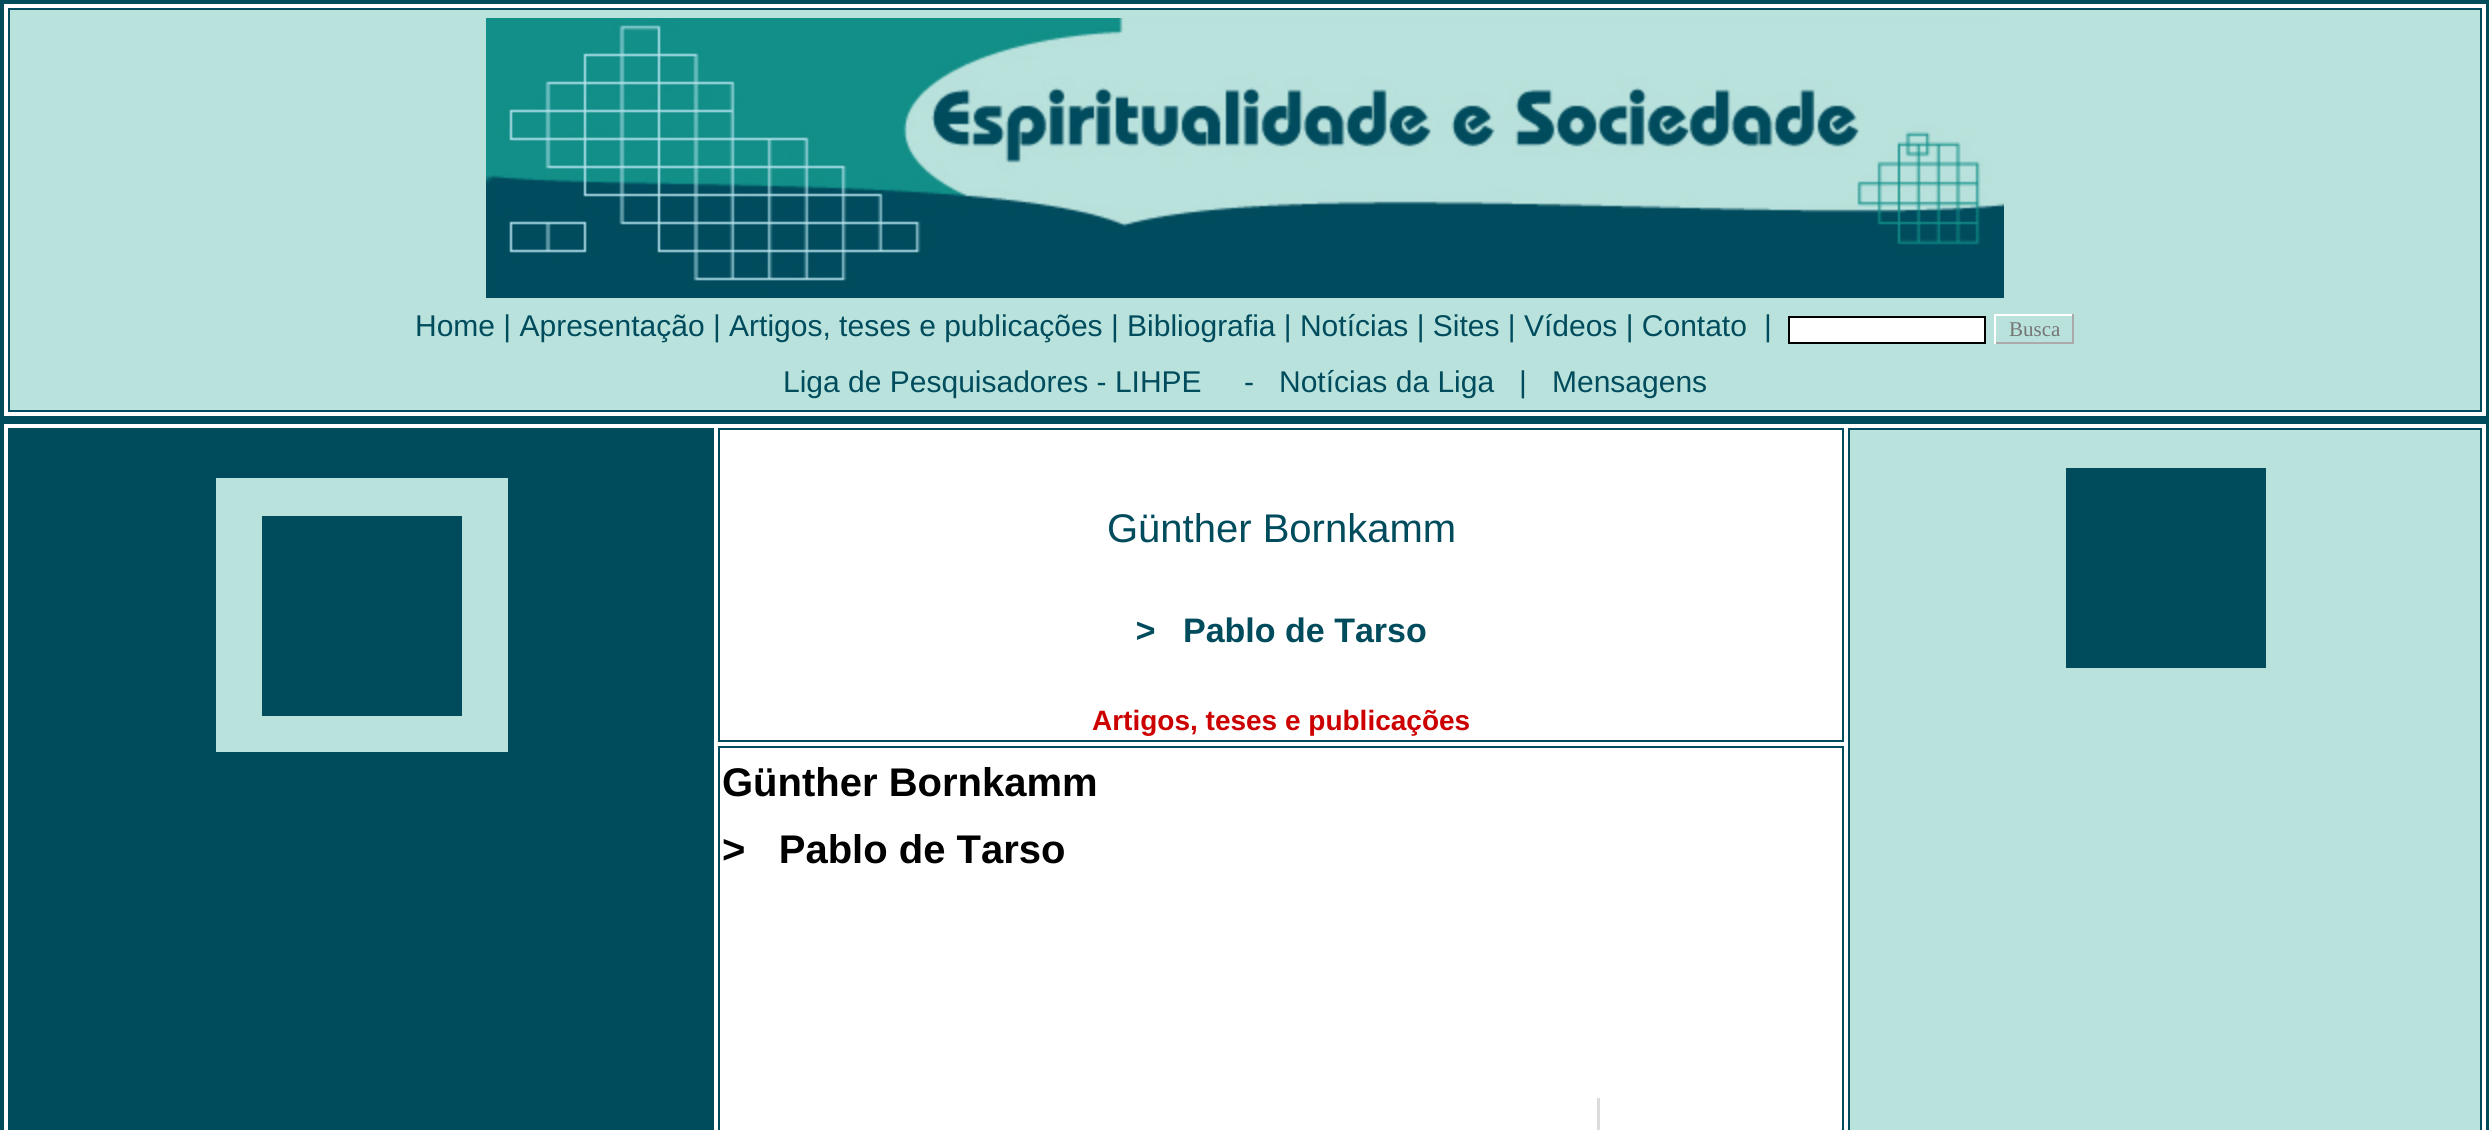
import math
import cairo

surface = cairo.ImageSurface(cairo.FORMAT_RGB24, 2489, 1130)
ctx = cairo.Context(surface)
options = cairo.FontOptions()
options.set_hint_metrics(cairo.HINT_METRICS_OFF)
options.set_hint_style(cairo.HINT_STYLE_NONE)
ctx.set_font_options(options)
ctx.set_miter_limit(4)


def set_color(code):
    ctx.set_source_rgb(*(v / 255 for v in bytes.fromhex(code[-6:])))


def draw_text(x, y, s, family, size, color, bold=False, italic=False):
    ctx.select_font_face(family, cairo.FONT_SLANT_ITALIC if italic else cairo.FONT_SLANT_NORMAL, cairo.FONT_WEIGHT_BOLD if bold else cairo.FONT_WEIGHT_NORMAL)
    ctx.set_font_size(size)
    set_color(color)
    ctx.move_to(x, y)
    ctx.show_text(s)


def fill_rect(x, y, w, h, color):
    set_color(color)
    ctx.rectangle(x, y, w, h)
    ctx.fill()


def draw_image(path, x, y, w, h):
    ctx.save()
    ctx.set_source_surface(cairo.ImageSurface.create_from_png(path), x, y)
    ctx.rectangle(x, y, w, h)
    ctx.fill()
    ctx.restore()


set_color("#ffffff")
ctx.paint()
ctx.rectangle(2, 2, 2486, 416)
set_color("#004c5d")
ctx.set_line_width(4)
ctx.stroke()
fill_rect(10, 10, 2470, 288, "#b9e2dd")
ctx.rectangle(9, 9, 2472, 402)
set_color("#004c5d")
ctx.set_line_width(2)
ctx.stroke()
draw_image("assets/img1.png", 486, 18, 1518, 280)
fill_rect(10, 298, 2470, 112, "#b9e2dd")
draw_text(415, 336, "Home | Apresentação | Artigos, teses e publicações | Bibliografia | Notícias | Sites | Vídeos | Contato", "Liberation Sans", 30, "#004c5d")
draw_text(1764, 336, "|", "Liberation Sans", 30, "#004c5d")
set_color("#ffffff")
ctx.rectangle(1789, 317, 196, 26)
ctx.fill_preserve()
set_color("#000000")
ctx.stroke()
fill_rect(1994, 314, 80, 2, "#ffffff")
fill_rect(2072, 314, 2, 30, "#aaaaaa")
fill_rect(1994, 342, 80, 2, "#aaaaaa")
fill_rect(1994, 314, 2, 30, "#ffffff")
draw_text(2009, 336, "Busca", "Liberation Serif", 21, "#757575")
draw_text(783, 392, "Liga de Pesquisadores - LIHPE", "Liberation Sans", 30, "#004c5d")
draw_text(1244, 392, "-", "Liberation Sans", 30, "#004c5d")
draw_text(1279, 392, "Notícias da Liga", "Liberation Sans", 30, "#004c5d")
draw_text(1519, 392, "|", "Liberation Sans", 30, "#004c5d")
draw_text(1552, 392, "Mensagens", "Liberation Sans", 30, "#004c5d")
ctx.rectangle(2, 422, 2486, 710)
ctx.set_line_width(4)
ctx.stroke()
fill_rect(8, 428, 706, 702, "#004c5d")
fill_rect(216, 478, 292, 274, "#b9e2dd")
fill_rect(262, 516, 200, 200, "#004c5c")
ctx.rectangle(719, 429, 1124, 312)
set_color("#004c5d")
ctx.set_line_width(2)
ctx.stroke()
draw_text(1107, 542, "Günther Bornkamm", "Liberation Sans", 40, "#004c5d")
draw_text(1135, 642, ">", "Liberation Sans", 34, "#004c5d", bold=True, italic=True)
draw_text(1183, 642, "Pablo de Tarso", "Liberation Sans", 34, "#004c5d", bold=True)
draw_text(1092, 730, "Artigos, teses e publicações", "Liberation Sans", 28, "#cc0000", bold=True)
set_color("#b9e2dd")
ctx.rectangle(1849, 429, 632, 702)
ctx.fill_preserve()
set_color("#004c5d")
ctx.stroke()
fill_rect(2066, 468, 200, 200, "#004c5c")
ctx.rectangle(719, 747, 1124, 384)
set_color("#004c5d")
ctx.stroke()
draw_text(722, 796, "Günther Bornkamm", "Liberation Sans", 40, "#000000", bold=True)
draw_text(722, 863, ">   Pablo de Tarso", "Liberation Sans", 40, "#000000", bold=True)
fill_rect(1597, 1098, 3, 32, "#dcdcdc")
surface.write_to_png("output.png")
